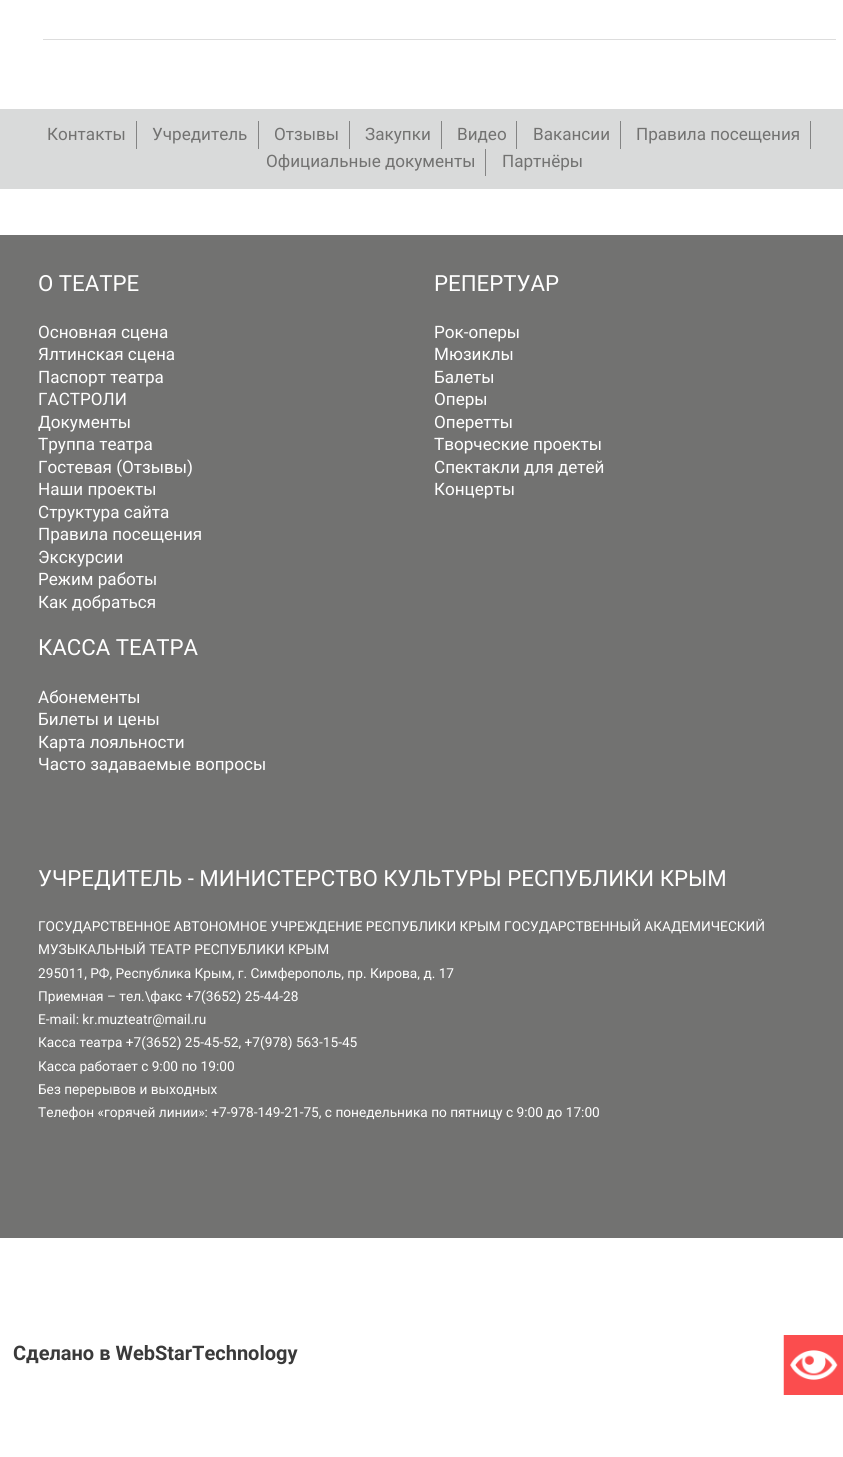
import math
import cairo

surface = cairo.ImageSurface(cairo.FORMAT_RGB24, 843, 1457)
ctx = cairo.Context(surface)
options = cairo.FontOptions()
options.set_hint_metrics(cairo.HINT_METRICS_OFF)
options.set_hint_style(cairo.HINT_STYLE_NONE)
ctx.set_font_options(options)
ctx.set_miter_limit(4)


def set_color(code):
    ctx.set_source_rgb(*(v / 255 for v in bytes.fromhex(code[-6:])))


def draw_text(x, y, s, family, size, color, bold=False, italic=False):
    ctx.select_font_face(family, cairo.FONT_SLANT_ITALIC if italic else cairo.FONT_SLANT_NORMAL, cairo.FONT_WEIGHT_BOLD if bold else cairo.FONT_WEIGHT_NORMAL)
    ctx.set_font_size(size)
    set_color(color)
    ctx.move_to(x, y)
    ctx.show_text(s)


def fill_rect(x, y, w, h, color):
    set_color(color)
    ctx.rectangle(x, y, w, h)
    ctx.fill()


def draw_image(path, x, y, w, h):
    ctx.save()
    ctx.set_source_surface(cairo.ImageSurface.create_from_png(path), x, y)
    ctx.rectangle(x, y, w, h)
    ctx.fill()
    ctx.restore()


set_color("#ffffff")
ctx.paint()
fill_rect(43, 39, 793, 1, "#dddddd")
fill_rect(0, 109, 843, 80, "#d9dada")
draw_text(47, 140, "Контакты", "Roboto", 17.1, "#727271")
fill_rect(136, 121, 1, 28, "#848484")
draw_text(152, 140, "Учредитель", "Roboto", 17.1, "#727271")
fill_rect(258, 121, 1, 28, "#848484")
draw_text(274, 140, "Отзывы", "Roboto", 17.1, "#727271")
fill_rect(349, 121, 1, 28, "#848484")
draw_text(365, 140, "Закупки", "Roboto", 17.1, "#727271")
fill_rect(441, 121, 1, 28, "#848484")
draw_text(457, 140, "Видео", "Roboto", 17.1, "#727271")
fill_rect(516, 121, 1, 28, "#848484")
draw_text(533, 140, "Вакансии", "Roboto", 17.1, "#727271")
fill_rect(620, 121, 1, 28, "#848484")
draw_text(636, 140, "Правила посещения", "Roboto", 17.1, "#727271")
fill_rect(810, 121, 1, 28, "#848484")
draw_text(266, 167, "Официальные документы", "Roboto", 17.1, "#727271")
fill_rect(485, 149, 1, 27, "#848484")
draw_text(502, 167, "Партнёры", "Roboto", 17.1, "#727271")
fill_rect(0, 235, 843, 1003, "#727271")
draw_text(38, 291, "О ТЕАТРЕ", "Roboto", 22.25, "#ffffff")
draw_text(38, 338, "Основная сцена", "Roboto", 17.1, "#ffffff")
draw_text(38, 360, "Ялтинская сцена", "Roboto", 17.1, "#ffffff")
draw_text(38, 383, "Паспорт театра", "Roboto", 17.1, "#ffffff")
draw_text(38, 405, "ГАСТРОЛИ", "Roboto", 17.1, "#ffffff")
draw_text(38, 428, "Документы", "Roboto", 17.1, "#ffffff")
draw_text(38, 450, "Труппа театра", "Roboto", 17.1, "#ffffff")
draw_text(38, 473, "Гостевая (Отзывы)", "Roboto", 17.1, "#ffffff")
draw_text(38, 495, "Наши проекты", "Roboto", 17.1, "#ffffff")
draw_text(38, 518, "Структура сайта", "Roboto", 17.1, "#ffffff")
draw_text(38, 540, "Правила посещения", "Roboto", 17.1, "#ffffff")
draw_text(38, 563, "Экскурсии", "Roboto", 17.1, "#ffffff")
draw_text(38, 585, "Режим работы", "Roboto", 17.1, "#ffffff")
draw_text(38, 608, "Как добраться", "Roboto", 17.1, "#ffffff")
draw_text(434, 291, "РЕПЕРТУАР", "Roboto", 22.25, "#ffffff")
draw_text(434, 338, "Рок-оперы", "Roboto", 17.1, "#ffffff")
draw_text(434, 360, "Мюзиклы", "Roboto", 17.1, "#ffffff")
draw_text(434, 383, "Балеты", "Roboto", 17.1, "#ffffff")
draw_text(434, 405, "Оперы", "Roboto", 17.1, "#ffffff")
draw_text(434, 428, "Оперетты", "Roboto", 17.1, "#ffffff")
draw_text(434, 450, "Творческие проекты", "Roboto", 17.1, "#ffffff")
draw_text(434, 473, "Спектакли для детей", "Roboto", 17.1, "#ffffff")
draw_text(434, 495, "Концерты", "Roboto", 17.1, "#ffffff")
draw_text(38, 655, "КАССА ТЕАТРА", "Roboto", 22.25, "#ffffff")
draw_text(38, 703, "Абонементы", "Roboto", 17.1, "#ffffff")
draw_text(38, 725, "Билеты и цены", "Roboto", 17.1, "#ffffff")
draw_text(38, 748, "Карта лояльности", "Roboto", 17.1, "#ffffff")
draw_text(38, 770, "Часто задаваемые вопросы", "Roboto", 17.1, "#ffffff")
draw_text(38, 886, "УЧРЕДИТЕЛЬ - МИНИСТЕРСТВО КУЛЬТУРЫ РЕСПУБЛИКИ КРЫМ", "Roboto", 22.25, "#ffffff")
draw_text(38, 931, "ГОСУДАРСТВЕННОЕ АВТОНОМНОЕ УЧРЕЖДЕНИЕ РЕСПУБЛИКИ КРЫМ ГОСУДАРСТВЕННЫЙ АКАДЕМИЧЕСКИЙ", "Roboto", 13.68, "#ffffff")
draw_text(38, 954, "МУЗЫКАЛЬНЫЙ ТЕАТР РЕСПУБЛИКИ КРЫМ", "Roboto", 13.68, "#ffffff")
draw_text(38, 978, "295011, РФ, Республика Крым, г. Симферополь, пр. Кирова, д. 17", "Roboto", 13.68, "#ffffff")
draw_text(38, 1001, "Приемная – тел.\\факс +7(3652) 25-44-28", "Roboto", 13.68, "#ffffff")
draw_text(38, 1024, "E-mail: kr.muzteatr@mail.ru", "Roboto", 13.68, "#ffffff")
draw_text(38, 1047, "Касса театра +7(3652) 25-45-52, +7(978) 563-15-45", "Roboto", 13.68, "#ffffff")
draw_text(38, 1071, "Касса работает с 9:00 по 19:00", "Roboto", 13.68, "#ffffff")
draw_text(38, 1094, "Без перерывов и выходных", "Roboto", 13.68, "#ffffff")
draw_text(38, 1117, "Телефон «горячей линии»: +7-978-149-21-75, с понедельника по пятницу с 9:00 до 17:00", "Roboto", 13.68, "#ffffff")
draw_text(13, 1360, "Сделано в WebStarTechnology", "Roboto", 20, "#3a3a3a", bold=True)
draw_image("assets/img1.png", 783, 1335, 60, 60)
surface.write_to_png("output.png")
